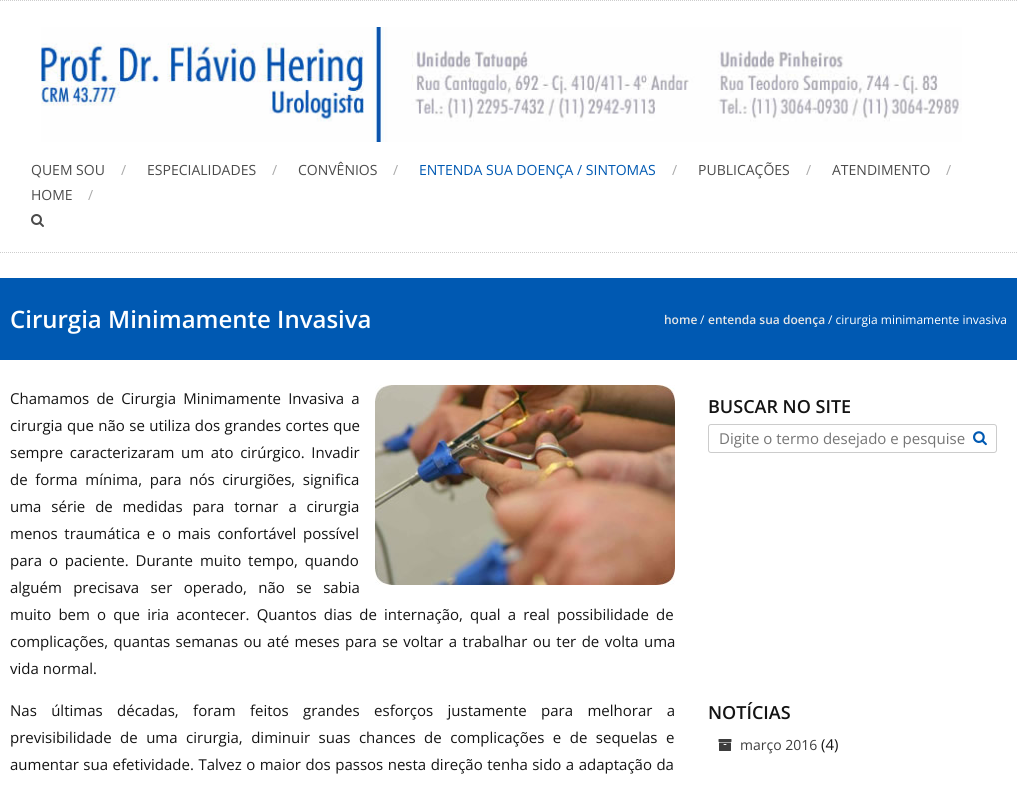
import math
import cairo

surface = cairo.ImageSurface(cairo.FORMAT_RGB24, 1017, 785)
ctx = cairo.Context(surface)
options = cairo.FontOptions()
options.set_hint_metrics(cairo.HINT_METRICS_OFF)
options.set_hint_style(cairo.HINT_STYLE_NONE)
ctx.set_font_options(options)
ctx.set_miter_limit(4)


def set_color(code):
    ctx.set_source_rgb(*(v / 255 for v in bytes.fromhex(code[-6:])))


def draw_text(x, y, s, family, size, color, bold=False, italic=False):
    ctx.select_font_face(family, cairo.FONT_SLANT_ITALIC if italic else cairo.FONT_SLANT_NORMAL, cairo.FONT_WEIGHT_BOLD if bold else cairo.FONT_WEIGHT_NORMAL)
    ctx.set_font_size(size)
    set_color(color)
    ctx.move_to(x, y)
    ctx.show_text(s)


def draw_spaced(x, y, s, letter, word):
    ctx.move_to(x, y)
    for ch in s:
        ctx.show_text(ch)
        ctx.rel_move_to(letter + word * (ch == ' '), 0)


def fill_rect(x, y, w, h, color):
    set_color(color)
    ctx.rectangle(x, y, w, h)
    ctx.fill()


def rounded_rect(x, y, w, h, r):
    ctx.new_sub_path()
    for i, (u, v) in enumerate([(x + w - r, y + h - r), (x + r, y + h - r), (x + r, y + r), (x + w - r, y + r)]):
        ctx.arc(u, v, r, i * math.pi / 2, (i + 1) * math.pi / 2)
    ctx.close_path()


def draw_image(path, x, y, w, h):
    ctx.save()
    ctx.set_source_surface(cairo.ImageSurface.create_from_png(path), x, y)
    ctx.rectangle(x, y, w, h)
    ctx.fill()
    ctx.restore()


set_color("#ffffff")
ctx.paint()
ctx.new_path()
ctx.move_to(0, 0.5)
ctx.line_to(1017, 0.5)
set_color("#cdcdcd")
ctx.set_line_width(1)
ctx.set_dash([1, 1])
ctx.stroke()
ctx.new_path()
ctx.move_to(0, 252.5)
ctx.line_to(1017, 252.5)
ctx.stroke()
draw_image("assets/img1.png", 41, 27, 921, 115)
draw_text(31, 175, "QUEM SOU", "Open Sans", 14, "#4b4b4b")
draw_text(121, 175, "/", "Open Sans", 14, "#aaaaaa")
draw_text(147, 175, "ESPECIALIDADES", "Open Sans", 14, "#4b4b4b")
draw_text(272, 175, "/", "Open Sans", 14, "#aaaaaa")
draw_text(298, 175, "CONVÊNIOS", "Open Sans", 14, "#4b4b4b")
draw_text(393, 175, "/", "Open Sans", 14, "#aaaaaa")
draw_text(419, 175, "ENTENDA SUA DOENÇA / SINTOMAS", "Open Sans", 14, "#0059b2")
draw_text(672, 175, "/", "Open Sans", 14, "#aaaaaa")
draw_text(698, 175, "PUBLICAÇÕES", "Open Sans", 14, "#4b4b4b")
draw_text(806, 175, "/", "Open Sans", 14, "#aaaaaa")
draw_text(832, 175, "ATENDIMENTO", "Open Sans", 14, "#4b4b4b")
draw_text(946, 175, "/", "Open Sans", 14, "#aaaaaa")
draw_text(31, 200, "HOME", "Open Sans", 14, "#4b4b4b")
draw_text(88, 200, "/", "Open Sans", 14, "#aaaaaa")
draw_image("assets/img2.png", 31, 214, 13, 13)
fill_rect(0, 278, 1017, 82, "#0059b2")
draw_text(10, 328, "Cirurgia Minimamente Invasiva", "Open Sans SemiBold", 24, "#ffffff")
draw_text(664, 324, "home", "Open Sans SemiBold", 12, "#e6e6e6")
draw_text(700, 324, "/", "Open Sans", 12, "#ffffff")
draw_text(708, 324, "entenda sua doença", "Open Sans SemiBold", 12, "#e6e6e6")
draw_text(828, 324, "/ cirurgia minimamente invasiva", "Open Sans", 12, "#ffffff")
ctx.set_font_size(15)
set_color("#141414")
draw_spaced(10, 404, "Chamamos de Cirurgia Minimamente Invasiva a", 0, 3.25)
draw_image("assets/img3.png", 375, 385, 300, 200)
draw_spaced(10, 431, "cirurgia que não se utiliza dos grandes cortes que", 0, 0.5)
draw_spaced(10, 458, "sempre caracterizaram um ato cirúrgico. Invadir", 0, 2.75)
draw_spaced(10, 485, "de forma mínima, para nós cirurgiões, significa", 0, 3.75)
draw_spaced(10, 512, "uma série de medidas para tornar a cirurgia", 0, 6)
draw_spaced(10, 539, "menos traumática e o mais confortável possível", 0, 2.75)
draw_spaced(10, 566, "para o paciente. Durante muito tempo, quando", 0, 3)
draw_spaced(10, 593, "alguém precisava ser operado, não se sabia", 0, 7.5)
draw_spaced(10, 620, "muito bem o que iria acontecer. Quantos dias de internação, qual a real possibilidade de", 0, 3.25)
draw_spaced(10, 647, "complicações, quantas semanas ou até meses para se voltar a trabalhar ou ter de volta uma", 0, 1.5)
draw_text(10, 674, "vida normal.", "Open Sans", 15, "#141414")
draw_spaced(10, 716, "Nas últimas décadas, foram feitos grandes esforços justamente para melhorar a", 0, 10.5)
draw_spaced(10, 743, "previsibilidade de uma cirurgia, diminuir suas chances de complicações e de sequelas e", 0, 4.6)
draw_spaced(10, 770, "aumentar sua efetividade. Talvez o maior dos passos nesta direção tenha sido a adaptação da", 0, 0.6)
draw_text(708, 413, "BUSCAR NO SITE", "Open Sans SemiBold", 18, "#141414")
rounded_rect(708.5, 424.5, 288, 28, 2.5)
set_color("#cccccc")
ctx.set_dash([])
ctx.stroke()
draw_text(719, 444, "Digite o termo desejado e pesquise", "Open Sans", 15, "#757575")
draw_image("assets/img4.png", 973, 431, 14, 15)
draw_text(708, 719, "NOTÍCIAS", "Open Sans SemiBold", 18, "#141414")
draw_image("assets/img5.png", 718, 739, 14, 12)
draw_text(740, 750, "março 2016", "Open Sans", 14, "#3d3d3d")
draw_text(821, 750, "(4)", "Open Sans", 15, "#141414")
surface.write_to_png("output.png")
